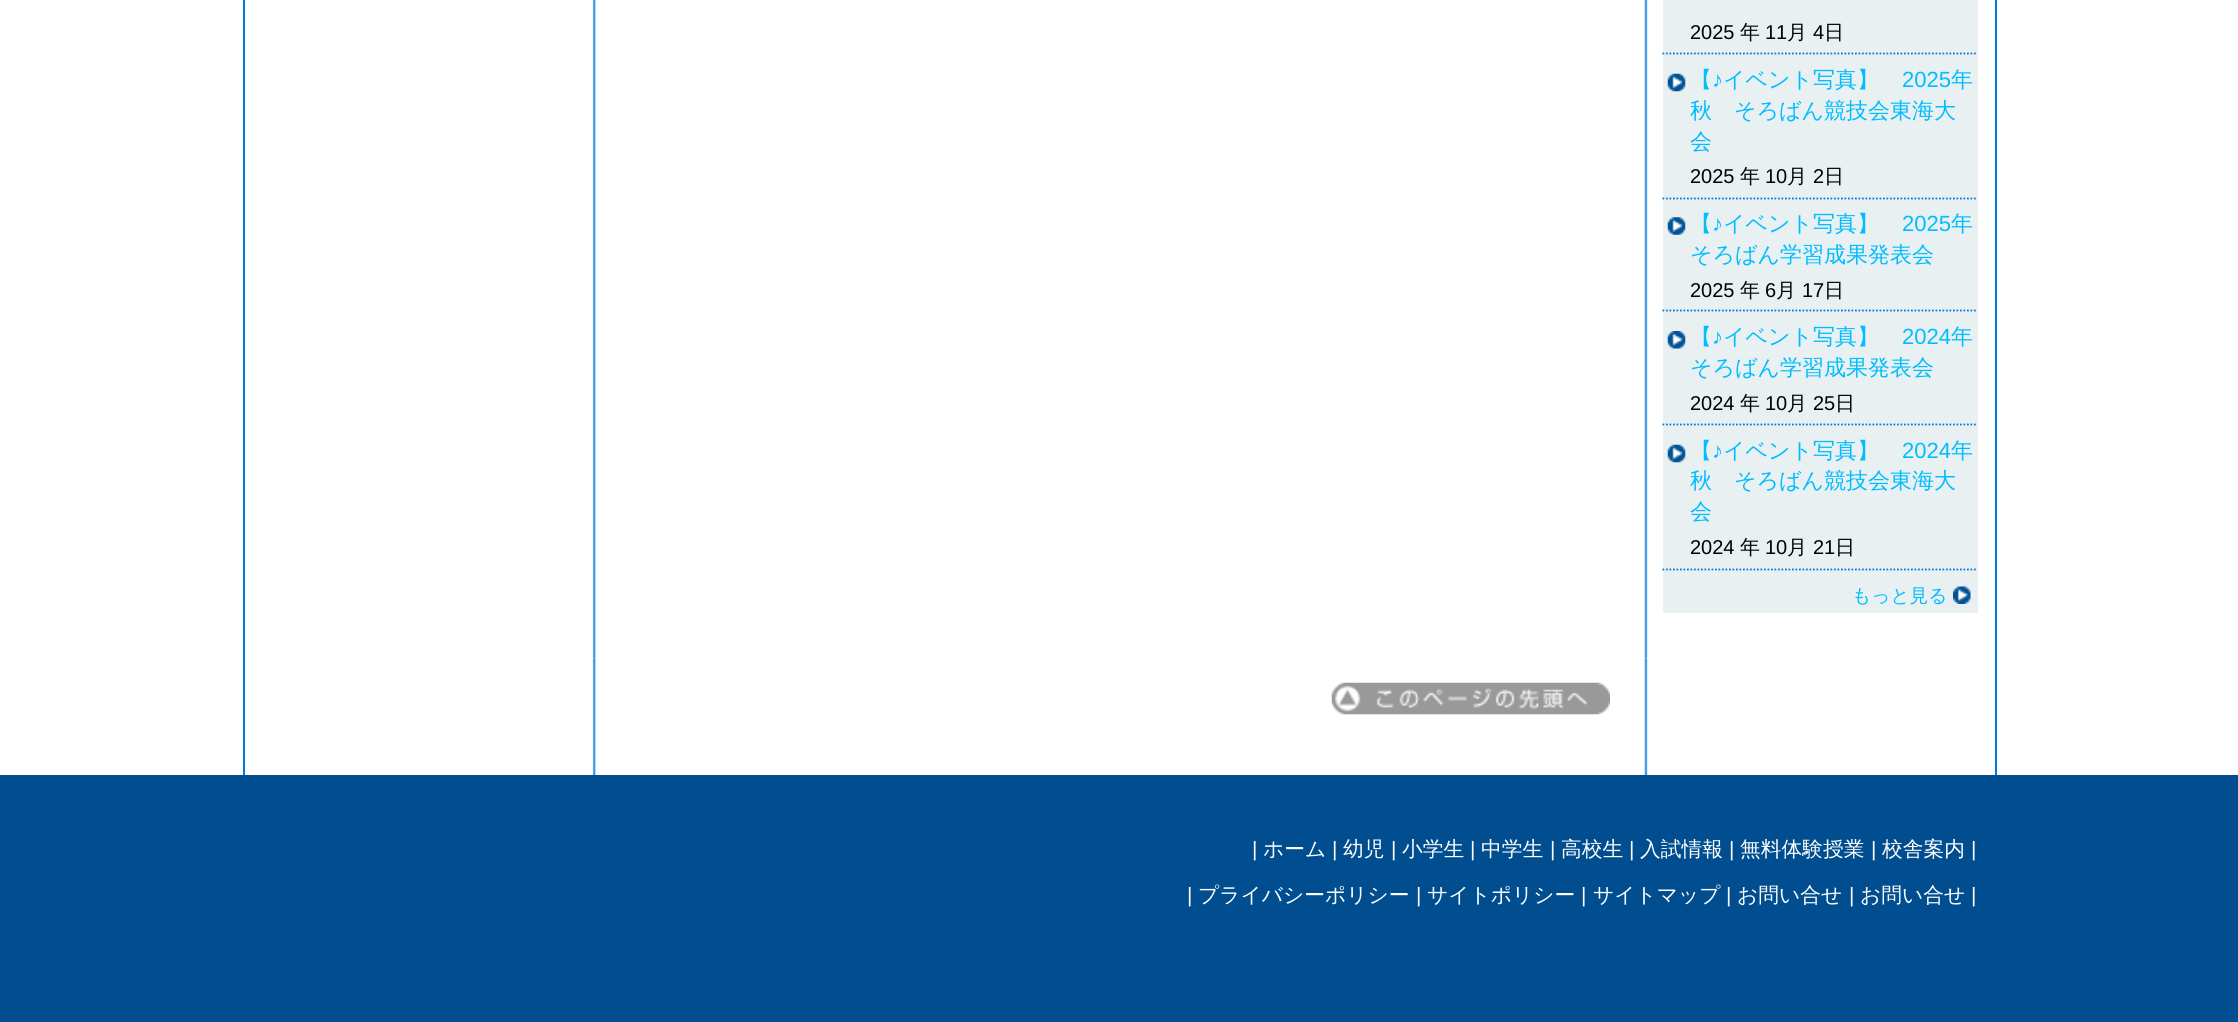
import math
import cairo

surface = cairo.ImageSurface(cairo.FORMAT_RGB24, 2238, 1022)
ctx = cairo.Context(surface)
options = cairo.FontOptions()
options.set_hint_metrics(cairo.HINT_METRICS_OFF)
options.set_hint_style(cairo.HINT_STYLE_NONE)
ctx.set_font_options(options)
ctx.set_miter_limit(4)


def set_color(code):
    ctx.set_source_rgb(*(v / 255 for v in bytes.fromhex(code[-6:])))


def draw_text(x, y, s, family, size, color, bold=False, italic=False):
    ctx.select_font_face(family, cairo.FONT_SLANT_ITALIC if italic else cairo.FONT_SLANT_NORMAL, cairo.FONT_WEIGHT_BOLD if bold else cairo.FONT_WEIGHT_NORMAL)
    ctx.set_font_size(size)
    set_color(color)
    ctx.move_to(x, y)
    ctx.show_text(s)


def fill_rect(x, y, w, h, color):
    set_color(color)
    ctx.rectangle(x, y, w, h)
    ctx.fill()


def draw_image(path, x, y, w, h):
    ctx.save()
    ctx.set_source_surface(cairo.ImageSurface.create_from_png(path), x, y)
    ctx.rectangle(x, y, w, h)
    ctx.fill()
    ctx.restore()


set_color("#ffffff")
ctx.paint()
draw_image("assets/img1.png", 592, 0, 1056, 658)
fill_rect(1995, 0, 2, 775, "#0079de")
fill_rect(243, 0, 2, 775, "#0079de")
fill_rect(1663, 0, 315, 613, "#e9f0f2")
ctx.new_path()
ctx.move_to(1662.5, 53.5)
ctx.line_to(1977.5, 53.5)
set_color("#0079de")
ctx.set_line_width(1.8)
ctx.set_dash([1.75, 1.75])
ctx.stroke()
draw_text(1690, 39, "2025", "Liberation Sans", 20, "#000000")
draw_text(1740, 39, "年", "WenQuanYi Zen Hei Medium", 20, "#000000")
draw_text(1765, 39, "11", "Liberation Sans", 20, "#000000")
draw_text(1787, 39, "月", "WenQuanYi Zen Hei Medium", 20, "#000000")
draw_text(1813, 39, "4", "Liberation Sans", 20, "#000000")
draw_text(1824, 39, "日", "WenQuanYi Zen Hei Medium", 20, "#000000")
draw_image("assets/img2.png", 1667, 73, 19, 19)
ctx.new_path()
ctx.move_to(1662.5, 198.5)
ctx.line_to(1977.5, 198.5)
set_color("#0079de")
ctx.stroke()
draw_text(1690, 87, "【", "WenQuanYi Zen Hei Medium", 22, "#00bdff")
draw_text(1712, 87, "♪", "Liberation Sans", 22, "#00bdff")
draw_text(1723, 87, "イベント写真】", "WenQuanYi Zen Hei Medium", 22, "#00bdff")
draw_text(1902, 87, "2025", "Liberation Sans", 22, "#00bdff")
draw_text(1951, 87, "年", "WenQuanYi Zen Hei Medium", 22, "#00bdff")
draw_text(1690, 118, "秋　そろばん競技会東海大", "WenQuanYi Zen Hei Medium", 22, "#00bdff")
draw_text(1690, 149, "会", "WenQuanYi Zen Hei Medium", 22, "#00bdff")
draw_text(1690, 183, "2025", "Liberation Sans", 20, "#000000")
draw_text(1740, 183, "年", "WenQuanYi Zen Hei Medium", 20, "#000000")
draw_text(1765, 183, "10", "Liberation Sans", 20, "#000000")
draw_text(1787, 183, "月", "WenQuanYi Zen Hei Medium", 20, "#000000")
draw_text(1813, 183, "2", "Liberation Sans", 20, "#000000")
draw_text(1824, 183, "日", "WenQuanYi Zen Hei Medium", 20, "#000000")
draw_image("assets/img3.png", 1667, 217, 19, 18)
ctx.new_path()
ctx.move_to(1662.5, 310.5)
ctx.line_to(1977.5, 310.5)
set_color("#0079de")
ctx.stroke()
draw_text(1690, 231, "【", "WenQuanYi Zen Hei Medium", 22, "#00bdff")
draw_text(1712, 231, "♪", "Liberation Sans", 22, "#00bdff")
draw_text(1723, 231, "イベント写真】", "WenQuanYi Zen Hei Medium", 22, "#00bdff")
draw_text(1902, 231, "2025", "Liberation Sans", 22, "#00bdff")
draw_text(1951, 231, "年", "WenQuanYi Zen Hei Medium", 22, "#00bdff")
draw_text(1690, 262, "そろばん学習成果発表会", "WenQuanYi Zen Hei Medium", 22, "#00bdff")
draw_text(1690, 297, "2025", "Liberation Sans", 20, "#000000")
draw_text(1740, 297, "年", "WenQuanYi Zen Hei Medium", 20, "#000000")
draw_text(1765, 297, "6", "Liberation Sans", 20, "#000000")
draw_text(1776, 297, "月", "WenQuanYi Zen Hei Medium", 20, "#000000")
draw_text(1802, 297, "17", "Liberation Sans", 20, "#000000")
draw_text(1824, 297, "日", "WenQuanYi Zen Hei Medium", 20, "#000000")
draw_image("assets/img4.png", 1667, 331, 19, 18)
ctx.new_path()
ctx.move_to(1662.5, 424.5)
ctx.line_to(1977.5, 424.5)
set_color("#0079de")
ctx.stroke()
draw_text(1690, 344, "【", "WenQuanYi Zen Hei Medium", 22, "#00bdff")
draw_text(1712, 344, "♪", "Liberation Sans", 22, "#00bdff")
draw_text(1723, 344, "イベント写真】", "WenQuanYi Zen Hei Medium", 22, "#00bdff")
draw_text(1902, 344, "2024", "Liberation Sans", 22, "#00bdff")
draw_text(1951, 344, "年", "WenQuanYi Zen Hei Medium", 22, "#00bdff")
draw_text(1690, 375, "そろばん学習成果発表会", "WenQuanYi Zen Hei Medium", 22, "#00bdff")
draw_text(1690, 410, "2024", "Liberation Sans", 20, "#000000")
draw_text(1740, 410, "年", "WenQuanYi Zen Hei Medium", 20, "#000000")
draw_text(1765, 410, "10", "Liberation Sans", 20, "#000000")
draw_text(1787, 410, "月", "WenQuanYi Zen Hei Medium", 20, "#000000")
draw_text(1813, 410, "25", "Liberation Sans", 20, "#000000")
draw_text(1835, 410, "日", "WenQuanYi Zen Hei Medium", 20, "#000000")
draw_image("assets/img2.png", 1667, 444, 19, 19)
ctx.new_path()
ctx.move_to(1662.5, 569.5)
ctx.line_to(1977.5, 569.5)
set_color("#0079de")
ctx.stroke()
draw_text(1690, 458, "【", "WenQuanYi Zen Hei Medium", 22, "#00bdff")
draw_text(1712, 458, "♪", "Liberation Sans", 22, "#00bdff")
draw_text(1723, 458, "イベント写真】", "WenQuanYi Zen Hei Medium", 22, "#00bdff")
draw_text(1902, 458, "2024", "Liberation Sans", 22, "#00bdff")
draw_text(1951, 458, "年", "WenQuanYi Zen Hei Medium", 22, "#00bdff")
draw_text(1690, 488, "秋　そろばん競技会東海大", "WenQuanYi Zen Hei Medium", 22, "#00bdff")
draw_text(1690, 519, "会", "WenQuanYi Zen Hei Medium", 22, "#00bdff")
draw_text(1690, 554, "2024", "Liberation Sans", 20, "#000000")
draw_text(1740, 554, "年", "WenQuanYi Zen Hei Medium", 20, "#000000")
draw_text(1765, 554, "10", "Liberation Sans", 20, "#000000")
draw_text(1787, 554, "月", "WenQuanYi Zen Hei Medium", 20, "#000000")
draw_text(1813, 554, "21", "Liberation Sans", 20, "#000000")
draw_text(1835, 554, "日", "WenQuanYi Zen Hei Medium", 20, "#000000")
draw_image("assets/img5.png", 1953, 586, 18, 18)
draw_text(1852, 602, "もっと見る", "WenQuanYi Zen Hei Medium", 18.75, "#00bdff")
draw_image("assets/img6.png", 592, 658, 1056, 117)
draw_image("assets/img7.png", 1331, 682, 279, 33)
fill_rect(0, 775, 2238, 247, "#004e8f")
draw_text(1252, 856, "|", "Liberation Sans", 20.75, "#ffffff")
draw_text(1263, 856, "ホーム", "WenQuanYi Zen Hei Medium", 20.75, "#ffffff")
draw_text(1332, 856, "|", "Liberation Sans", 20.75, "#ffffff")
draw_text(1343, 856, "幼児", "WenQuanYi Zen Hei Medium", 20.75, "#ffffff")
draw_text(1391, 856, "|", "Liberation Sans", 20.75, "#ffffff")
draw_text(1402, 856, "小学生", "WenQuanYi Zen Hei Medium", 20.75, "#ffffff")
draw_text(1470, 856, "|", "Liberation Sans", 20.75, "#ffffff")
draw_text(1481, 856, "中学生", "WenQuanYi Zen Hei Medium", 20.75, "#ffffff")
draw_text(1550, 856, "|", "Liberation Sans", 20.75, "#ffffff")
draw_text(1561, 856, "高校生", "WenQuanYi Zen Hei Medium", 20.75, "#ffffff")
draw_text(1629, 856, "|", "Liberation Sans", 20.75, "#ffffff")
draw_text(1640, 856, "入試情報", "WenQuanYi Zen Hei Medium", 20.75, "#ffffff")
draw_text(1729, 856, "|", "Liberation Sans", 20.75, "#ffffff")
draw_text(1740, 856, "無料体験授業", "WenQuanYi Zen Hei Medium", 20.75, "#ffffff")
draw_text(1871, 856, "|", "Liberation Sans", 20.75, "#ffffff")
draw_text(1882, 856, "校舎案内", "WenQuanYi Zen Hei Medium", 20.75, "#ffffff")
draw_text(1971, 856, "|", "Liberation Sans", 20.75, "#ffffff")
draw_text(1187, 902, "|", "Liberation Sans", 20.75, "#ffffff")
draw_text(1198, 902, "プライバシーポリシー", "WenQuanYi Zen Hei Medium", 20.75, "#ffffff")
draw_text(1416, 902, "|", "Liberation Sans", 20.75, "#ffffff")
draw_text(1427, 902, "サイトポリシー", "WenQuanYi Zen Hei Medium", 20.75, "#ffffff")
draw_text(1581, 902, "|", "Liberation Sans", 20.75, "#ffffff")
draw_text(1593, 902, "サイトマップ", "WenQuanYi Zen Hei Medium", 20.75, "#ffffff")
draw_text(1726, 902, "|", "Liberation Sans", 20.75, "#ffffff")
draw_text(1737, 902, "お問い合せ", "WenQuanYi Zen Hei Medium", 20.75, "#ffffff")
draw_text(1849, 902, "|", "Liberation Sans", 20.75, "#ffffff")
draw_text(1860, 902, "お問い合せ", "WenQuanYi Zen Hei Medium", 20.75, "#ffffff")
draw_text(1971, 902, "|", "Liberation Sans", 20.75, "#ffffff")
surface.write_to_png("output.png")
